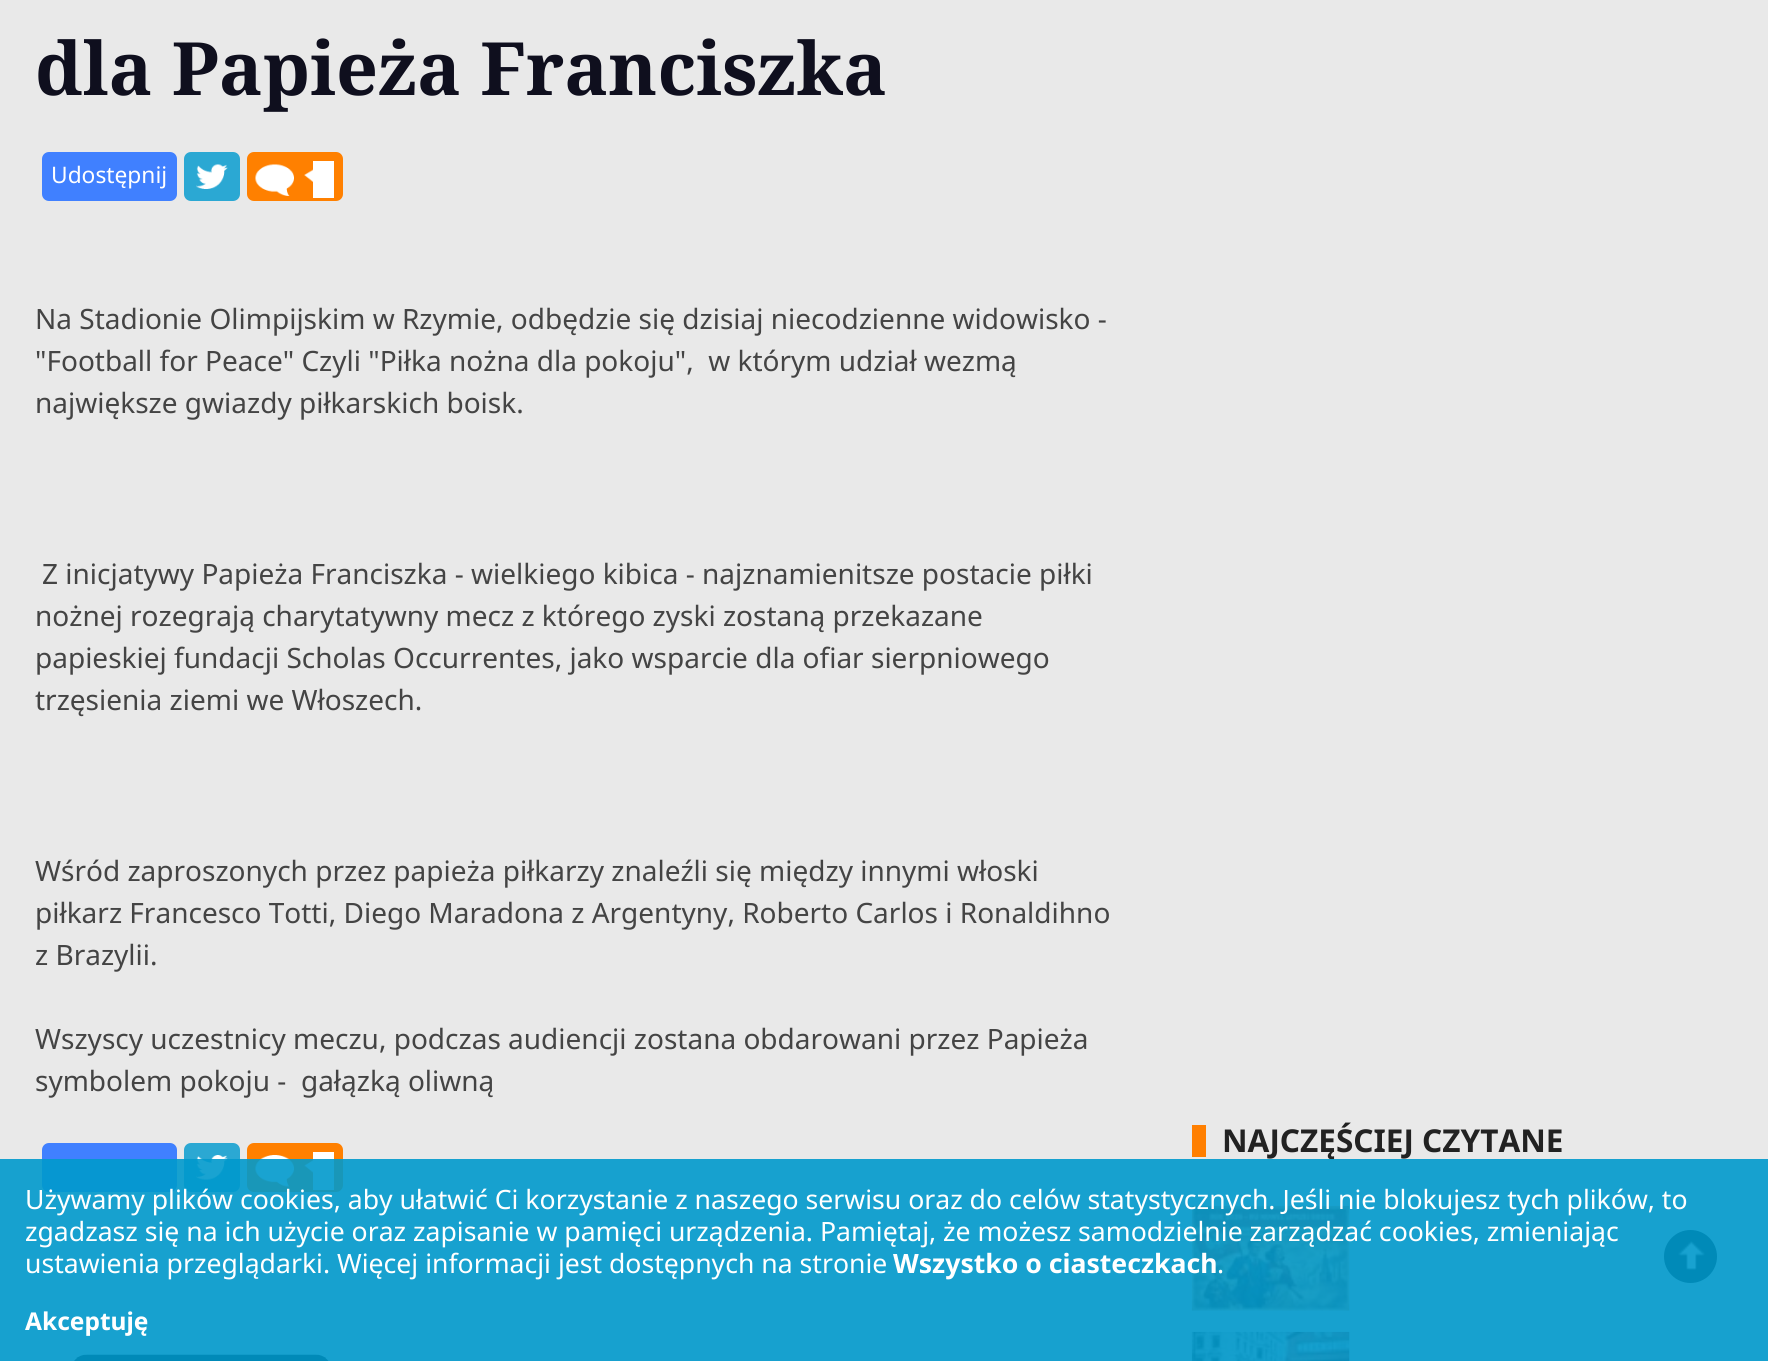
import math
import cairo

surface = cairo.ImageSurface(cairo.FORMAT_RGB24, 1768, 1361)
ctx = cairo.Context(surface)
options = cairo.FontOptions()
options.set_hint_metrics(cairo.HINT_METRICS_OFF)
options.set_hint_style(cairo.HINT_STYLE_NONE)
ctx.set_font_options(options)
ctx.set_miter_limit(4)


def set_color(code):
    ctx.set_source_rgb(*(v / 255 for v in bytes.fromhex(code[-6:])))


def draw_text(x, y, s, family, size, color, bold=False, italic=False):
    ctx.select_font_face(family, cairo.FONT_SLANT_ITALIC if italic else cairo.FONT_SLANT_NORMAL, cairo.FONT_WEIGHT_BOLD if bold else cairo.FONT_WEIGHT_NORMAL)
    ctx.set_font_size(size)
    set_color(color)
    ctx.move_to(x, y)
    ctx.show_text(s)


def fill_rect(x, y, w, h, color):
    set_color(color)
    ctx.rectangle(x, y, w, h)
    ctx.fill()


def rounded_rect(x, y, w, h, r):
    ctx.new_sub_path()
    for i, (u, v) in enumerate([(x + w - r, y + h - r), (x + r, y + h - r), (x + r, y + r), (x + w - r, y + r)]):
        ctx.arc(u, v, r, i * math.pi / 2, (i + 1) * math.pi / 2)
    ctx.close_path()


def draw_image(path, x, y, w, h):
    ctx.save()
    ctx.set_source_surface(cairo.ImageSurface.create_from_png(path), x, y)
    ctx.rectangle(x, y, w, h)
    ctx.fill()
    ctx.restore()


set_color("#e9e9e9")
ctx.paint()
draw_text(35, 95, "dla Papieża Franciszka", "Noto Serif", 73.5, "#0f0f1e", bold=True)
set_color("#4080ff")
rounded_rect(42, 152, 135, 49, 7)
ctx.fill()
draw_text(51, 183, "Udostępnij", "Noto Sans", 22.75, "#ffffff")
set_color("#2ba8d3")
rounded_rect(184, 152, 56, 49, 7)
ctx.fill()
draw_image("assets/img1.png", 196, 164, 32, 25)
set_color("#ff8000")
rounded_rect(247, 152, 96, 49, 7)
ctx.fill()
draw_image("assets/img2.png", 255, 164, 39, 32)
fill_rect(313, 161, 21, 37, "#ffffff")
draw_image("assets/img3.png", 304, 169, 9, 13)
draw_text(35, 329, "Na Stadionie Olimpijskim w Rzymie, odbędzie się dzisiaj niecodzienne widowisko -", "Noto Sans", 28, "#444444")
draw_text(35, 371, "\"Football for Peace\" Czyli \"Piłka nożna dla pokoju\",  w którym udział wezmą", "Noto Sans", 28, "#444444")
draw_text(35, 413, "największe gwiazdy piłkarskich boisk.", "Noto Sans", 28, "#444444")
draw_text(42, 584, "Z inicjatywy Papieża Franciszka - wielkiego kibica - najznamienitsze postacie piłki", "Noto Sans", 28, "#444444")
draw_text(35, 626, "nożnej rozegrają charytatywny mecz z którego zyski zostaną przekazane", "Noto Sans", 28, "#444444")
draw_text(35, 668, "papieskiej fundacji Scholas Occurrentes, jako wsparcie dla ofiar sierpniowego", "Noto Sans", 28, "#444444")
draw_text(35, 710, "trzęsienia ziemi we Włoszech.", "Noto Sans", 28, "#444444")
draw_text(35, 881, "Wśród zaproszonych przez papieża piłkarzy znaleźli się między innymi włoski", "Noto Sans", 28, "#444444")
draw_text(35, 923, "piłkarz Francesco Totti, Diego Maradona z Argentyny, Roberto Carlos i Ronaldihno", "Noto Sans", 28, "#444444")
draw_text(35, 965, "z Brazylii.", "Noto Sans", 28, "#444444")
draw_text(35, 1049, "Wszyscy uczestnicy meczu, podczas audiencji zostana obdarowani przez Papieża", "Noto Sans", 28, "#444444")
draw_text(35, 1091, "symbolem pokoju -  gałązką oliwną", "Noto Sans", 28, "#444444")
set_color("#4080ff")
rounded_rect(42, 1143, 135, 49, 7)
ctx.fill()
set_color("#2ba8d3")
rounded_rect(184, 1143, 56, 49, 7)
ctx.fill()
draw_image("assets/img4.png", 196, 1155, 32, 25)
set_color("#ff8000")
rounded_rect(247, 1143, 96, 49, 7)
ctx.fill()
draw_image("assets/img5.png", 255, 1155, 39, 32)
fill_rect(313, 1152, 21, 38, "#ffffff")
draw_image("assets/img6.png", 304, 1160, 9, 13)
draw_image("assets/img7.png", 74, 1354, 255, 7)
fill_rect(1192, 1125, 14, 32, "#ff7f00")
draw_text(1222, 1152, "NAJCZĘŚCIEJ CZYTANE", "Noto Sans", 31.5, "#222222", bold=True)
draw_image("assets/img8.png", 1191, 1205, 159, 106)
draw_image("assets/img9.png", 1191, 1331, 159, 30)
set_color("#000000")
ctx.arc(1690.5, 1256.5, 26.5, 0, 2 * math.pi)
ctx.fill()
draw_image("assets/img10.png", 1678, 1241, 27, 29)
ctx.set_source_rgba(0, 0.6, 0.8, 0.9)
ctx.rectangle(0, 1159, 1768, 202)
ctx.fill()
draw_text(25, 1209, "Używamy plików cookies, aby ułatwić Ci korzystanie z naszego serwisu oraz do celów statystycznych. Jeśli nie blokujesz tych plików, to", "Noto Sans", 26.6, "#ffffff")
draw_text(25, 1241, "zgadzasz się na ich użycie oraz zapisanie w pamięci urządzenia. Pamiętaj, że możesz samodzielnie zarządzać cookies, zmieniając", "Noto Sans", 26.6, "#ffffff")
draw_text(25, 1273, "ustawienia przeglądarki. Więcej informacji jest dostępnych na stronie", "Noto Sans", 26.6, "#ffffff")
draw_text(893, 1273, "Wszystko o ciasteczkach", "Noto Sans", 26.6, "#ffffff", bold=True)
draw_text(1217, 1273, ".", "Noto Sans", 26.6, "#ffffff")
draw_text(25, 1330, "Akceptuję", "Noto Sans", 24.5, "#ffffff", bold=True)
surface.write_to_png("output.png")
